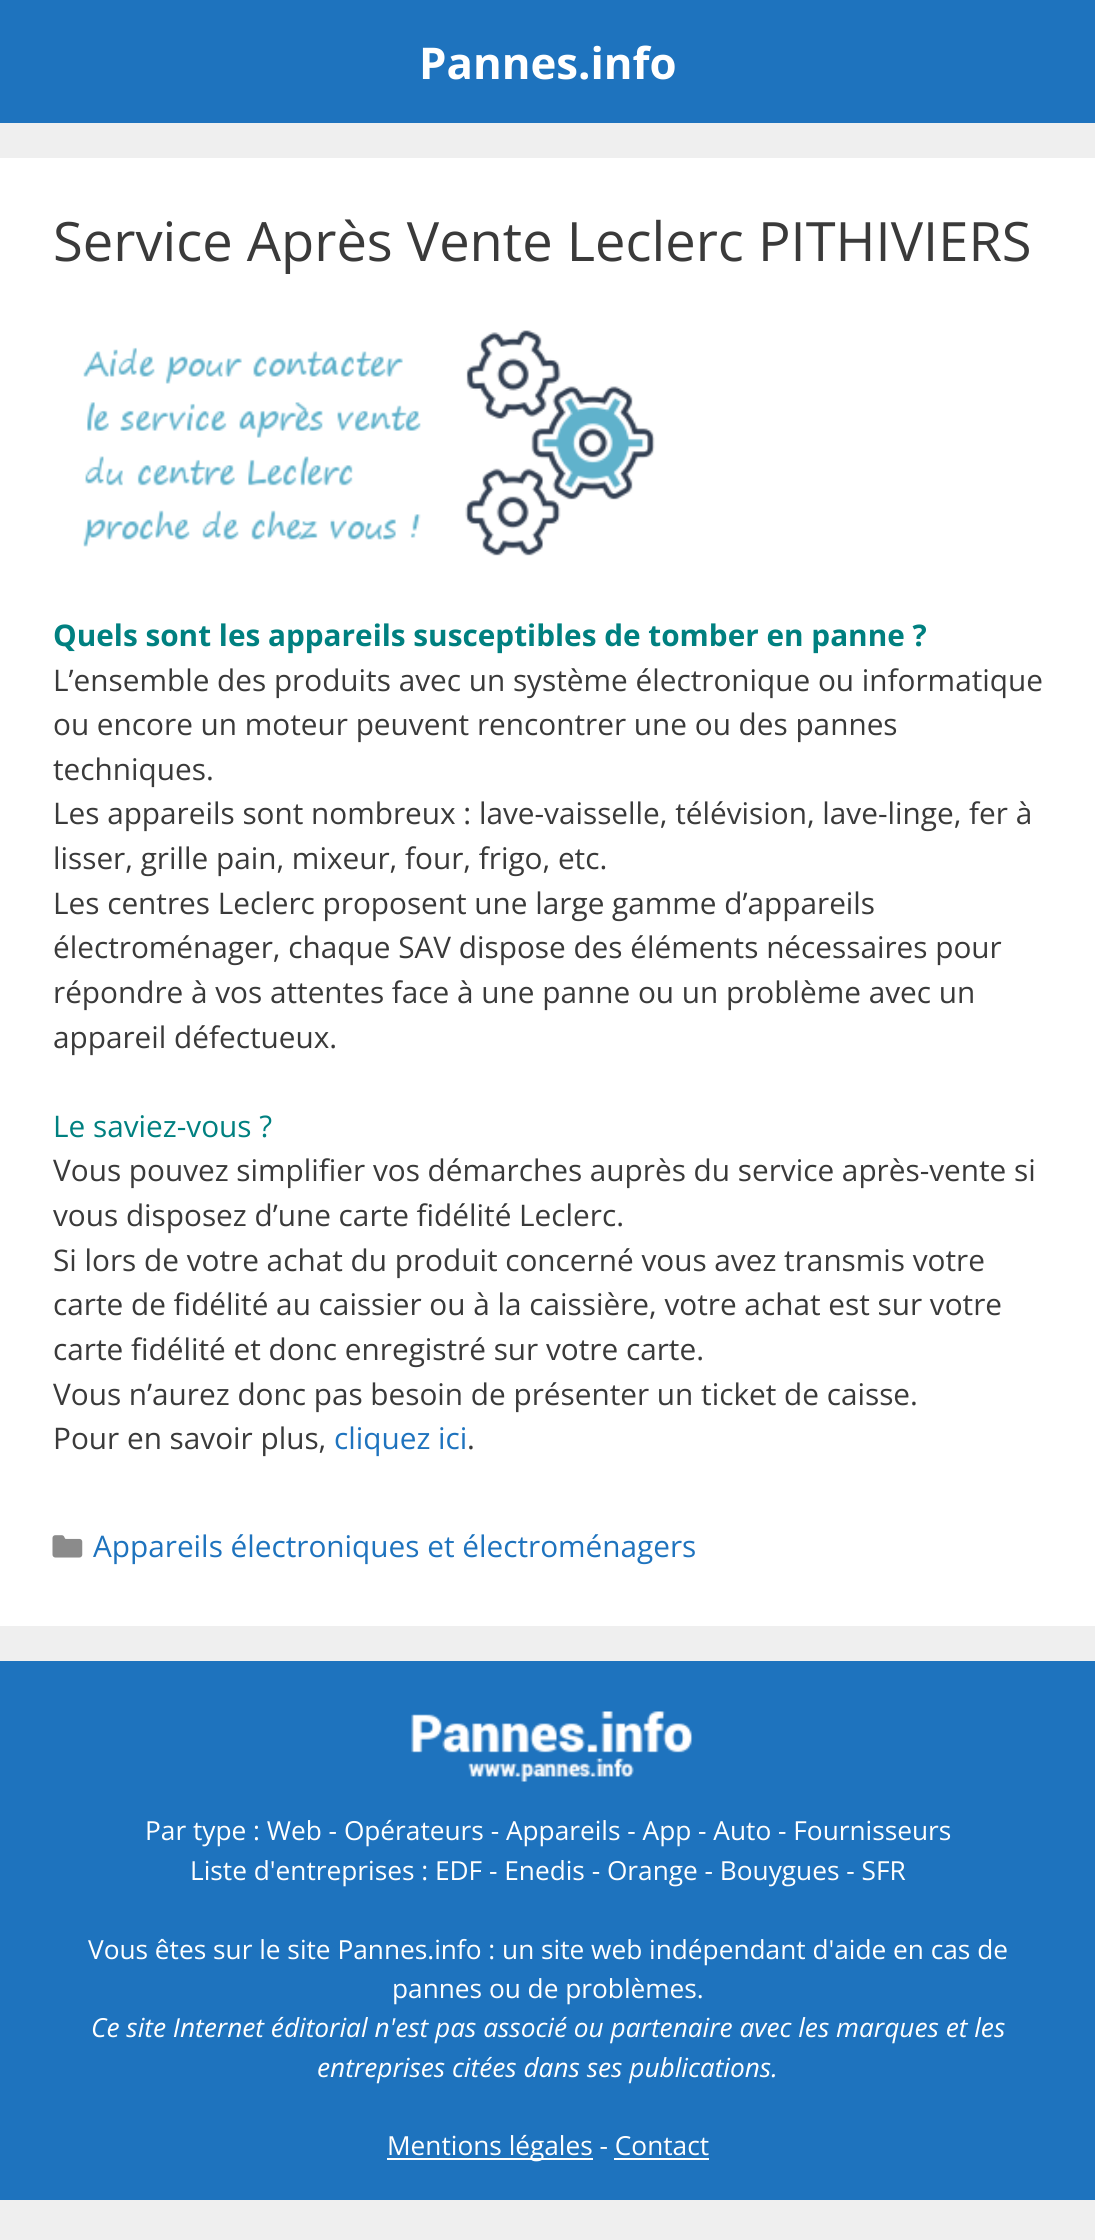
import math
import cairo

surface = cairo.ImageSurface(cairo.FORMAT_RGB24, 1095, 2240)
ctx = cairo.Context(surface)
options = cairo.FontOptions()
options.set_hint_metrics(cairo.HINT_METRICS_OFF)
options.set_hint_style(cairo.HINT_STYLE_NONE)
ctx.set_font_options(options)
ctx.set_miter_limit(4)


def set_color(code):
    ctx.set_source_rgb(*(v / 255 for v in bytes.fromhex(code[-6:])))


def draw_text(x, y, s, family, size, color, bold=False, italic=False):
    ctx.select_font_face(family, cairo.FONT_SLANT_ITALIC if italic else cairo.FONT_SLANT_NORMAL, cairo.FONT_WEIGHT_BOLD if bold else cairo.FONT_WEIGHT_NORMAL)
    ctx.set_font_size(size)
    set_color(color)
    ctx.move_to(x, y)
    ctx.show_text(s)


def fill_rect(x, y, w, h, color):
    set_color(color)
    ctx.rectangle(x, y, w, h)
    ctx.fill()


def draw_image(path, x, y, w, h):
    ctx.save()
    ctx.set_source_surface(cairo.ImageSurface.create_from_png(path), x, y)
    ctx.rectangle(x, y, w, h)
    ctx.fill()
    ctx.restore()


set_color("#efefef")
ctx.paint()
fill_rect(0, 0, 1095, 123, "#1e73be")
draw_text(419, 79, "Pannes.info", "Open Sans", 43.75, "#ffffff", bold=True)
fill_rect(0, 158, 1095, 1468, "#ffffff")
draw_text(53, 261, "Service Après Vente Leclerc PITHIVIERS", "Open Sans", 54.25, "#3a3a3a")
draw_image("assets/img1.png", 83, 330, 572, 226)
draw_text(53, 646, "Quels sont les appareils susceptibles de tomber en panne ?", "Open Sans", 29.75, "#008080", bold=True)
draw_text(53, 691, "L’ensemble des produits avec un système électronique ou informatique", "Open Sans", 29.75, "#3a3a3a")
draw_text(53, 735, "ou encore un moteur peuvent rencontrer une ou des pannes", "Open Sans", 29.75, "#3a3a3a")
draw_text(53, 780, "techniques.", "Open Sans", 29.75, "#3a3a3a")
draw_text(53, 824, "Les appareils sont nombreux : lave-vaisselle, télévision, lave-linge, fer à", "Open Sans", 29.75, "#3a3a3a")
draw_text(53, 869, "lisser, grille pain, mixeur, four, frigo, etc.", "Open Sans", 29.75, "#3a3a3a")
draw_text(53, 914, "Les centres Leclerc proposent une large gamme d’appareils", "Open Sans", 29.75, "#3a3a3a")
draw_text(53, 958, "électroménager, chaque SAV dispose des éléments nécessaires pour", "Open Sans", 29.75, "#3a3a3a")
draw_text(53, 1003, "répondre à vos attentes face à une panne ou un problème avec un", "Open Sans", 29.75, "#3a3a3a")
draw_text(53, 1048, "appareil défectueux.", "Open Sans", 29.75, "#3a3a3a")
draw_text(53, 1137, "Le saviez-vous ?", "Open Sans", 29.75, "#008080")
draw_text(53, 1181, "Vous pouvez simplifier vos démarches auprès du service après-vente si", "Open Sans", 29.75, "#3a3a3a")
draw_text(53, 1226, "vous disposez d’une carte fidélité Leclerc.", "Open Sans", 29.75, "#3a3a3a")
draw_text(53, 1271, "Si lors de votre achat du produit concerné vous avez transmis votre", "Open Sans", 29.75, "#3a3a3a")
draw_text(53, 1315, "carte de fidélité au caissier ou à la caissière, votre achat est sur votre", "Open Sans", 29.75, "#3a3a3a")
draw_text(53, 1360, "carte fidélité et donc enregistré sur votre carte.", "Open Sans", 29.75, "#3a3a3a")
draw_text(53, 1405, "Vous n’aurez donc pas besoin de présenter un ticket de caisse.", "Open Sans", 29.75, "#3a3a3a")
draw_text(53, 1449, "Pour en savoir plus,", "Open Sans", 29.75, "#3a3a3a")
draw_text(334, 1449, "cliquez ici", "Open Sans", 29.75, "#1e73be")
draw_text(467, 1449, ".", "Open Sans", 29.75, "#3a3a3a")
draw_image("assets/img2.png", 52, 1535, 31, 23)
draw_text(93, 1557, "Appareils électroniques et électroménagers", "Open Sans", 29.75, "#1e73be")
fill_rect(0, 1661, 1095, 539, "#1e73be")
draw_image("assets/img3.png", 411, 1711, 282, 71)
draw_text(145, 1840, "Par type : Web - Opérateurs - Appareils - App - Auto - Fournisseurs", "Open Sans", 26.25, "#ffffff")
draw_text(190, 1880, "Liste d'entreprises : EDF - Enedis - Orange - Bouygues - SFR", "Open Sans", 26.25, "#ffffff")
draw_text(88, 1959, "Vous êtes sur le site Pannes.info : un site web indépendant d'aide en cas de", "Open Sans", 26.25, "#ffffff")
draw_text(392, 1998, "pannes ou de problèmes.", "Open Sans", 26.25, "#ffffff")
draw_text(91, 2037, "Ce site Internet éditorial n'est pas associé ou partenaire avec les marques et les", "Open Sans", 26.25, "#ffffff", italic=True)
draw_text(317, 2077, "entreprises citées dans ses publications.", "Open Sans", 26.25, "#ffffff", italic=True)
fill_rect(387, 2158, 206, 2, "#ffffff")
draw_text(387, 2155, "Mentions légales - Contact", "Open Sans", 26.25, "#ffffff")
fill_rect(614, 2158, 95, 2, "#ffffff")
surface.write_to_png("output.png")
